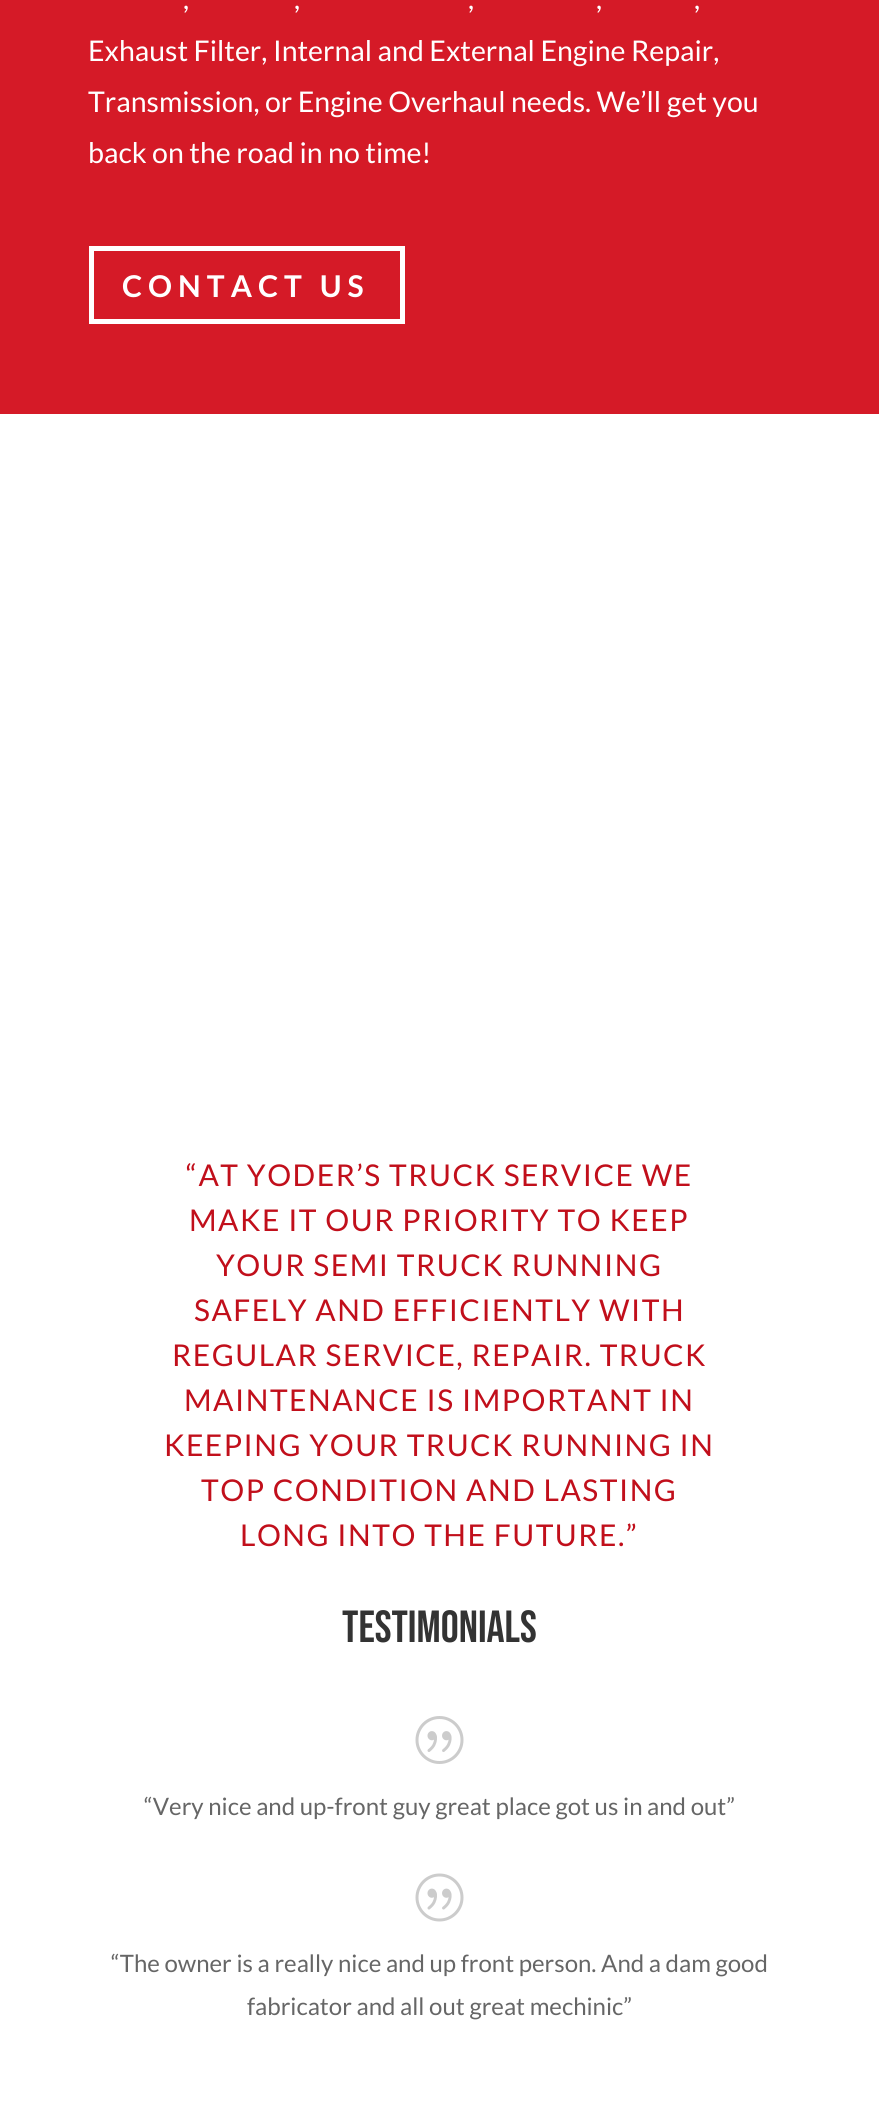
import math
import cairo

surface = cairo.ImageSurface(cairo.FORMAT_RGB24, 879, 2104)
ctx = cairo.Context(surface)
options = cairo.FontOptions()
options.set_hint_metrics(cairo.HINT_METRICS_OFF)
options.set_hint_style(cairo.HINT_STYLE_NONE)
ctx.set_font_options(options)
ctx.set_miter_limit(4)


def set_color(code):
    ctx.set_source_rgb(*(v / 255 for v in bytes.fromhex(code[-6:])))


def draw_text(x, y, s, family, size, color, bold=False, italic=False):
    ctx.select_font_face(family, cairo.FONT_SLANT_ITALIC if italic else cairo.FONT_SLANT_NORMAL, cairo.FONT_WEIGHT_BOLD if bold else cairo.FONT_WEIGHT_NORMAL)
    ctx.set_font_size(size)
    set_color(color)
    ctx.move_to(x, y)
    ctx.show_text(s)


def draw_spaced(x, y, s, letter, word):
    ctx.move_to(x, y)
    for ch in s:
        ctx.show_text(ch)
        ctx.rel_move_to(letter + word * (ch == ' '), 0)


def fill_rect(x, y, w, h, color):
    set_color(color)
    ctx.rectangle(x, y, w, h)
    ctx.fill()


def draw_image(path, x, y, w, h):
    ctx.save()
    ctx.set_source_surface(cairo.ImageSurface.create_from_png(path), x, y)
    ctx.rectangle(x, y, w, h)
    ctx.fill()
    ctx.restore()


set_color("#d51a27")
ctx.paint()
draw_text(183, 9, ",", "Lato", 28.5, "#ffffff")
draw_text(294, 9, ",", "Lato", 28.5, "#ffffff")
draw_text(468, 9, ",", "Lato", 28.5, "#ffffff")
draw_text(596, 9, ",", "Lato", 28.5, "#ffffff")
draw_text(694, 9, ",", "Lato", 28.5, "#ffffff")
draw_text(88, 61, "Exhaust Filter, Internal and External Engine Repair,", "Lato", 28.5, "#ffffff")
draw_text(88, 112, "Transmission, or Engine Overhaul needs. We’ll get you", "Lato", 28.5, "#ffffff")
draw_text(88, 163, "back on the road in no time!", "Lato", 28.5, "#ffffff")
ctx.rectangle(91.5, 248.5, 311, 73)
ctx.set_line_width(5)
ctx.stroke()
ctx.select_font_face("Lato", cairo.FONT_SLANT_NORMAL, cairo.FONT_WEIGHT_BOLD)
ctx.set_font_size(30)
draw_spaced(122, 297, "CONTACT US", 6, 0)
fill_rect(0, 414, 879, 1690, "#ffffff")
ctx.select_font_face("Lato")
set_color("#c10f1b")
draw_spaced(186, 1186, "“AT YODER’S TRUCK SERVICE WE", 1.5, 0)
draw_spaced(189, 1231, "MAKE IT OUR PRIORITY TO KEEP", 1.5, 0)
draw_spaced(216, 1276, "YOUR SEMI TRUCK RUNNING", 1.5, 0)
draw_spaced(194, 1321, "SAFELY AND EFFICIENTLY WITH", 1.5, 0)
draw_spaced(172, 1366, "REGULAR SERVICE, REPAIR. TRUCK", 1.5, 0)
draw_spaced(184, 1411, "MAINTENANCE IS IMPORTANT IN", 1.5, 0)
draw_spaced(164, 1456, "KEEPING YOUR TRUCK RUNNING IN", 1.5, 0)
draw_spaced(201, 1501, "TOP CONDITION AND LASTING", 1.5, 0)
draw_spaced(240, 1546, "LONG INTO THE FUTURE.”", 1.5, 0)
draw_text(342, 1642, "TESTIMONIALS", "Bebas Neue", 45, "#333333")
draw_image("assets/img1.png", 415, 1716, 49, 48)
draw_text(144, 1815, "“Very nice and up-front guy great place got us in and out”", "Lato", 24, "#666666")
draw_image("assets/img2.png", 415, 1873, 49, 49)
draw_text(111, 1972, "“The owner is a really nice and up front person. And a dam good", "Lato", 24, "#666666")
draw_text(247, 2015, "fabricator and all out great mechinic”", "Lato", 24, "#666666")
surface.write_to_png("output.png")
